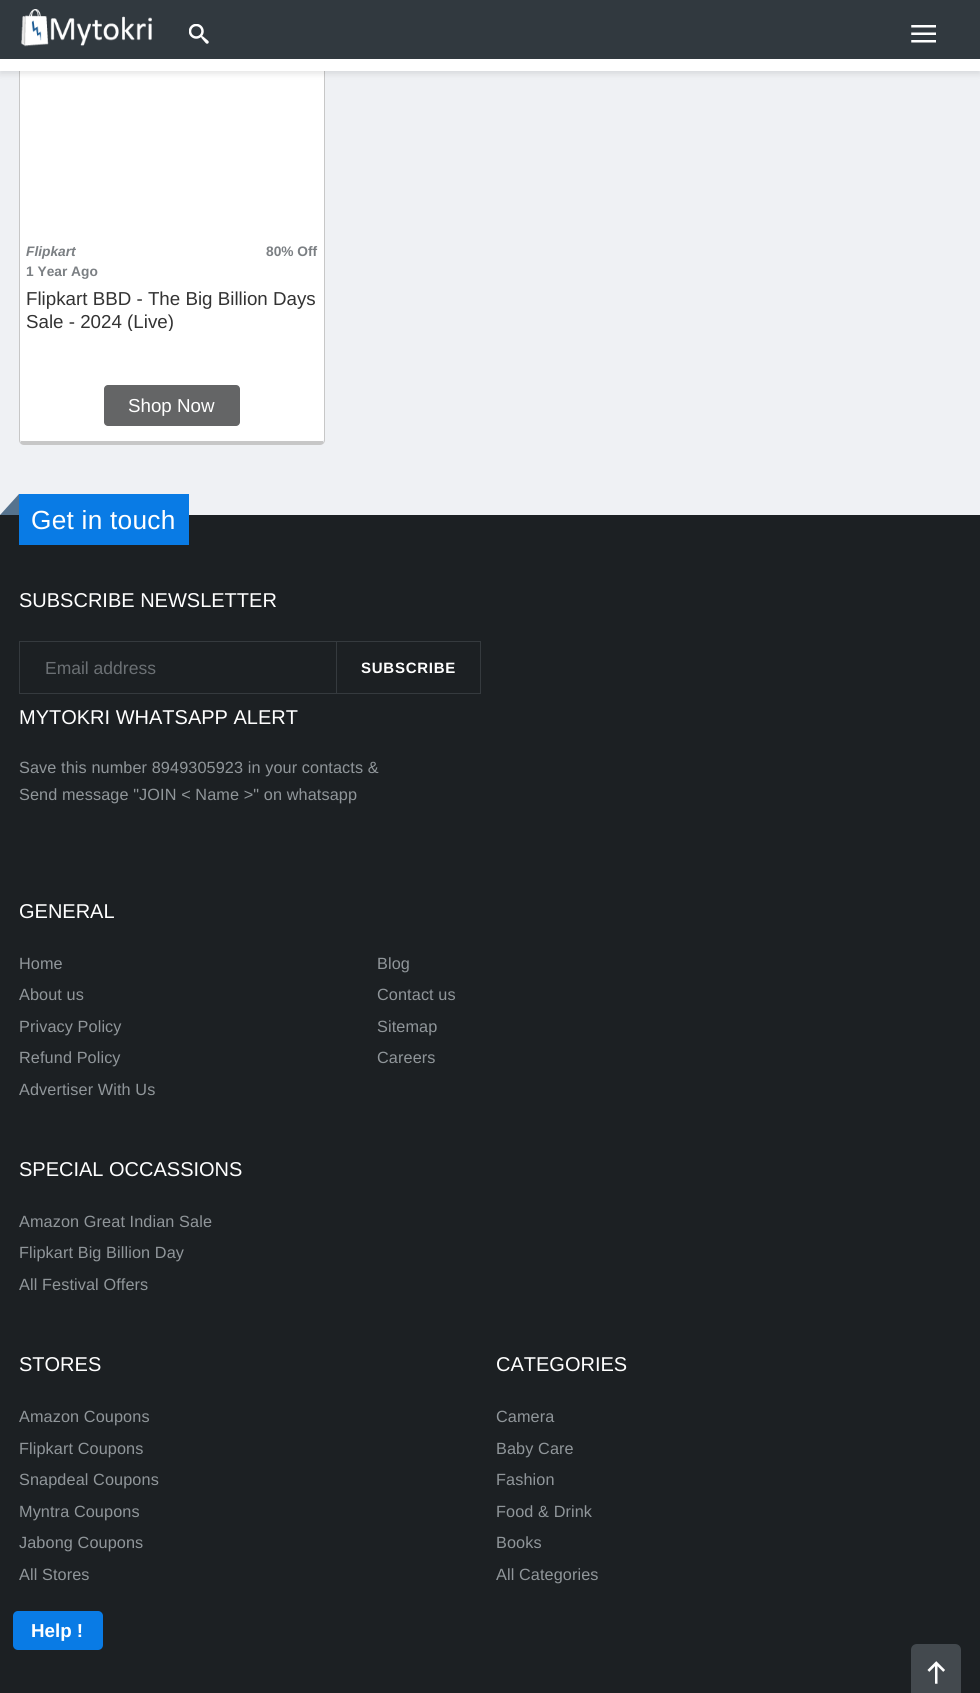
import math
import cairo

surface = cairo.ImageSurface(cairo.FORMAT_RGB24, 980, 1693)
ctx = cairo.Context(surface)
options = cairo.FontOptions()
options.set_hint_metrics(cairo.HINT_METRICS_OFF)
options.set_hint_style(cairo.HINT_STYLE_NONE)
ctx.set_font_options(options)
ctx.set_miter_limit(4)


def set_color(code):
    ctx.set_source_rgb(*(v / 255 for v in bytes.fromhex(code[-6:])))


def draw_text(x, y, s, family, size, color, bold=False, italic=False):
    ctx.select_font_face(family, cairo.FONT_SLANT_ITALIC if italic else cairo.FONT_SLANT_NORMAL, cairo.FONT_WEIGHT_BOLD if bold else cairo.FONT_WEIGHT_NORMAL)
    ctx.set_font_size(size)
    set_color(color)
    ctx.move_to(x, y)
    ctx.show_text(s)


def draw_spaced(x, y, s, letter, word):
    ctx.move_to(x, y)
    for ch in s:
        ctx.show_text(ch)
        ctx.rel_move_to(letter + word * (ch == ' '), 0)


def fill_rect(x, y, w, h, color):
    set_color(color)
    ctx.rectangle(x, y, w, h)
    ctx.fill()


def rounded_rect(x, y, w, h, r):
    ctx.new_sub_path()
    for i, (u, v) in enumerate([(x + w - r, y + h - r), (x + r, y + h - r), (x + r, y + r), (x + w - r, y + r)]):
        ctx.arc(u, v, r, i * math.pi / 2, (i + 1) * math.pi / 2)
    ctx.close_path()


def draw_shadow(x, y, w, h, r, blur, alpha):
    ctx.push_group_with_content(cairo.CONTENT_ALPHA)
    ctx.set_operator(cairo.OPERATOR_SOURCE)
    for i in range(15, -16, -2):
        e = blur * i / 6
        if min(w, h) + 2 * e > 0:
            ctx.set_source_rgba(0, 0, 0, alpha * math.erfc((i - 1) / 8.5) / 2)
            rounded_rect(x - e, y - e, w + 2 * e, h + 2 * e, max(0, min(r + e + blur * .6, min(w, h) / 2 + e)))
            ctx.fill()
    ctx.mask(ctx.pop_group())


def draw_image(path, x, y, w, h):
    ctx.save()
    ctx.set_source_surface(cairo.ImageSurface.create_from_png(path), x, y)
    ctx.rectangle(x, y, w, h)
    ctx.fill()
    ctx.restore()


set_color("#eff1f4")
ctx.paint()
set_color("#ffffff")
ctx.new_path()
ctx.move_to(24, 68)
ctx.line_to(320, 68)
ctx.curve_to(322, 68, 324, 69, 324, 71)
ctx.line_to(324, 440)
ctx.curve_to(324, 441, 322, 441, 320, 441)
ctx.line_to(24, 441)
ctx.curve_to(22, 441, 20, 441, 20, 440)
ctx.line_to(20, 71)
ctx.curve_to(20, 69, 22, 68, 24, 68)
ctx.close_path()
ctx.fill()
rounded_rect(19.5, 66.5, 305, 378, 4.5)
set_color("#c7c7c7")
ctx.set_line_width(1)
ctx.stroke()
set_color("#000000")
draw_shadow(0, 3, 980, 71, 0, 3, 0.1)
fill_rect(0, 0, 980, 59, "#31393f")
draw_image("assets/img1.png", 21, 9, 131, 38)
draw_image("assets/img2.png", 189, 24, 20, 20)
draw_image("assets/img3.png", 911, 25, 25, 18)
fill_rect(0, 59, 980, 12, "#ffffff")
fill_rect(21, 441, 302, 3, "#c7c7c7")
draw_text(26, 256, "Flipkart", "Liberation Sans", 13.75, "#7b7f83", bold=True, italic=True)
draw_text(266, 256, "80% Off", "Liberation Sans", 13.75, "#7b7f83", bold=True)
draw_text(26, 276, "1 Year Ago", "Liberation Sans", 13.75, "#7b7f83", bold=True)
draw_text(26, 305, "Flipkart BBD - The Big Billion Days", "Liberation Sans", 18.75, "#333333")
ctx.save()
ctx.rectangle(26, 288, 292, 43)
ctx.clip()
draw_text(26, 328, "Sale - 2024 (Live)", "Liberation Sans", 18.75, "#333333")
ctx.restore()
set_color("#646566")
rounded_rect(104, 385, 136, 41, 4)
ctx.fill()
draw_text(128, 412, "Shop Now", "Liberation Sans", 18.75, "#ffffff")
fill_rect(0, 515, 980, 1178, "#1c2023")
fill_rect(19, 494, 170, 51, "#097be5")
set_color("#56738e")
ctx.new_path()
ctx.move_to(19, 494)
ctx.line_to(19, 515)
ctx.line_to(0, 515)
ctx.close_path()
ctx.fill()
ctx.set_font_size(26.25)
set_color("#ffffff")
draw_spaced(31, 529, "Get in touch", 0.25, 0)
draw_text(19, 607, "SUBSCRIBE NEWSLETTER", "Liberation Sans", 20, "#ffffff")
ctx.rectangle(19.5, 641.5, 461, 52)
set_color("#353a3e")
ctx.stroke()
draw_text(45, 674, "Email address", "Liberation Sans", 17.5, "#6b7074")
ctx.rectangle(336.5, 641.5, 144, 52)
set_color("#353a3e")
ctx.stroke()
ctx.select_font_face("Liberation Sans", cairo.FONT_SLANT_NORMAL, cairo.FONT_WEIGHT_BOLD)
ctx.set_font_size(15)
set_color("#ffffff")
draw_spaced(361, 673, "SUBSCRIBE", 0.75, 0)
draw_text(19, 724, "MYTOKRI WHATSAPP ALERT", "Liberation Sans", 20, "#ffffff")
ctx.set_font_size(16.25)
set_color("#90969a")
draw_spaced(19, 773, "Save this number 8949305923 in your contacts &", 0.1, 0)
draw_spaced(19, 800, "Send message \"JOIN < Name >\" on whatsapp", 0.1, 0)
draw_text(19, 918, "GENERAL", "Liberation Sans", 20, "#ffffff")
ctx.set_font_size(16.25)
set_color("#90969a")
draw_spaced(19, 969, "Home", 0.1, 0)
draw_spaced(19, 1000, "About us", 0.1, 0)
draw_spaced(19, 1032, "Privacy Policy", 0.1, 0)
draw_spaced(19, 1063, "Refund Policy", 0.1, 0)
draw_spaced(19, 1095, "Advertiser With Us", 0.1, 0)
draw_spaced(377, 969, "Blog", 0.1, 0)
draw_spaced(377, 1000, "Contact us", 0.1, 0)
draw_spaced(377, 1032, "Sitemap", 0.1, 0)
draw_spaced(377, 1063, "Careers", 0.1, 0)
draw_text(19, 1176, "SPECIAL OCCASSIONS", "Liberation Sans", 20, "#ffffff")
ctx.set_font_size(16.25)
set_color("#90969a")
draw_spaced(19, 1227, "Amazon Great Indian Sale", 0.1, 0)
draw_spaced(19, 1258, "Flipkart Big Billion Day", 0.1, 0)
draw_spaced(19, 1290, "All Festival Offers", 0.1, 0)
draw_text(19, 1371, "STORES", "Liberation Sans", 20, "#ffffff")
ctx.set_font_size(16.25)
set_color("#90969a")
draw_spaced(19, 1422, "Amazon Coupons", 0.1, 0)
draw_spaced(19, 1454, "Flipkart Coupons", 0.1, 0)
draw_spaced(19, 1485, "Snapdeal Coupons", 0.1, 0)
draw_spaced(19, 1517, "Myntra Coupons", 0.1, 0)
draw_spaced(19, 1548, "Jabong Coupons", 0.1, 0)
draw_spaced(19, 1580, "All Stores", 0.1, 0)
draw_text(496, 1371, "CATEGORIES", "Liberation Sans", 20, "#ffffff")
ctx.set_font_size(16.25)
set_color("#90969a")
draw_spaced(496, 1422, "Camera", 0.1, 0)
draw_spaced(496, 1454, "Baby Care", 0.1, 0)
draw_spaced(496, 1485, "Fashion", 0.1, 0)
draw_spaced(496, 1517, "Food & Drink", 0.1, 0)
draw_spaced(496, 1548, "Books", 0.1, 0)
draw_spaced(496, 1580, "All Categories", 0.1, 0)
set_color("#097be5")
rounded_rect(13, 1611, 90, 39, 5)
ctx.fill()
draw_text(31, 1637, "Help !", "Liberation Sans", 18.75, "#ffffff", bold=True)
set_color("#43494e")
ctx.new_path()
ctx.move_to(917, 1644)
ctx.line_to(955, 1644)
ctx.curve_to(958.5, 1644, 961, 1646.5, 961, 1650)
ctx.line_to(961, 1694)
ctx.line_to(911, 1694)
ctx.line_to(911, 1650)
ctx.curve_to(911, 1646.5, 913.5, 1644, 917, 1644)
ctx.close_path()
ctx.fill()
draw_image("assets/img4.png", 927, 1661, 18, 23)
surface.write_to_png("output.png")
